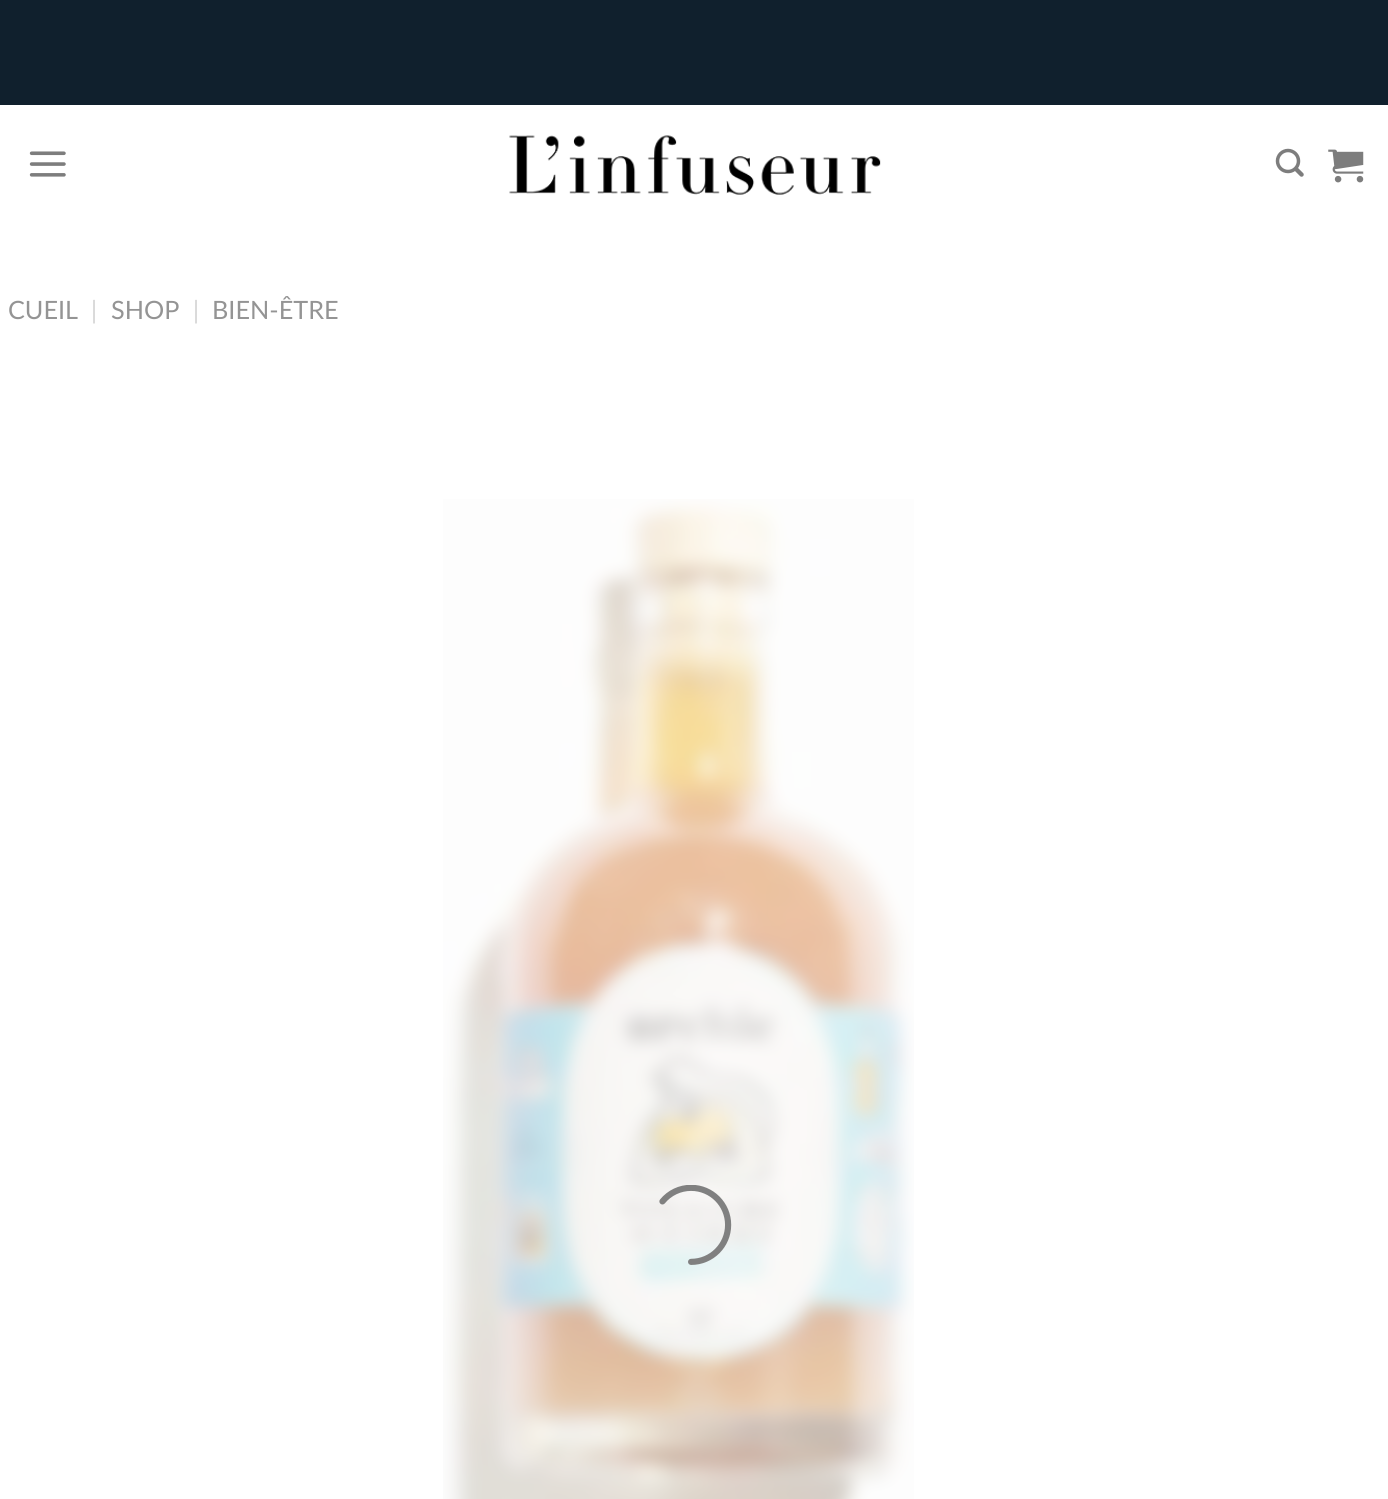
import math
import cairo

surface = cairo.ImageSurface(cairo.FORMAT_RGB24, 1388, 1499)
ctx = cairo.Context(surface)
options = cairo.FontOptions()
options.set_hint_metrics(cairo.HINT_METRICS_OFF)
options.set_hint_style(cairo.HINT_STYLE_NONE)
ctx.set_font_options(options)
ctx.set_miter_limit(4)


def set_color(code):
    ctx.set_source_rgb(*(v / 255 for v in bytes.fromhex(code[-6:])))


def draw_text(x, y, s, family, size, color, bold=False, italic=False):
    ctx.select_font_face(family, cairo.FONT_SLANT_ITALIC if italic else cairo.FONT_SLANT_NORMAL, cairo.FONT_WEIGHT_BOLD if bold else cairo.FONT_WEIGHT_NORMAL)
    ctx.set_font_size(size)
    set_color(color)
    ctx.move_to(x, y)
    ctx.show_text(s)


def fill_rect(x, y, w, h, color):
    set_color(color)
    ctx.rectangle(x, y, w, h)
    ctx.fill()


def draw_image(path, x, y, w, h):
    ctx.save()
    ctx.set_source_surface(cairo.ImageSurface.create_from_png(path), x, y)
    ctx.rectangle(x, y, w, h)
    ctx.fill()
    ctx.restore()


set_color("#ffffff")
ctx.paint()
fill_rect(0, 0, 1388, 105, "#10202d")
draw_image("assets/img1.png", 29, 151, 37, 26)
draw_image("assets/img2.png", 509, 135, 372, 60)
draw_image("assets/img3.png", 1275, 148, 29, 29)
draw_image("assets/img4.png", 1328, 149, 36, 34)
draw_text(8, 319, "CUEIL", "Lato", 25.25, "#949494")
draw_text(91, 319, "|", "Lato Light", 25.25, "#b2b2b2")
draw_text(111, 319, "SHOP", "Lato", 25.25, "#949494")
draw_text(193, 319, "|", "Lato Light", 25.25, "#b2b2b2")
draw_text(212, 319, "BIEN-ÊTRE", "Lato", 25.25, "#949494")
draw_image("assets/img5.png", 443, 499, 471, 1000)
draw_image("assets/img6.png", 659, 1185, 73, 80)
surface.write_to_png("output.png")
